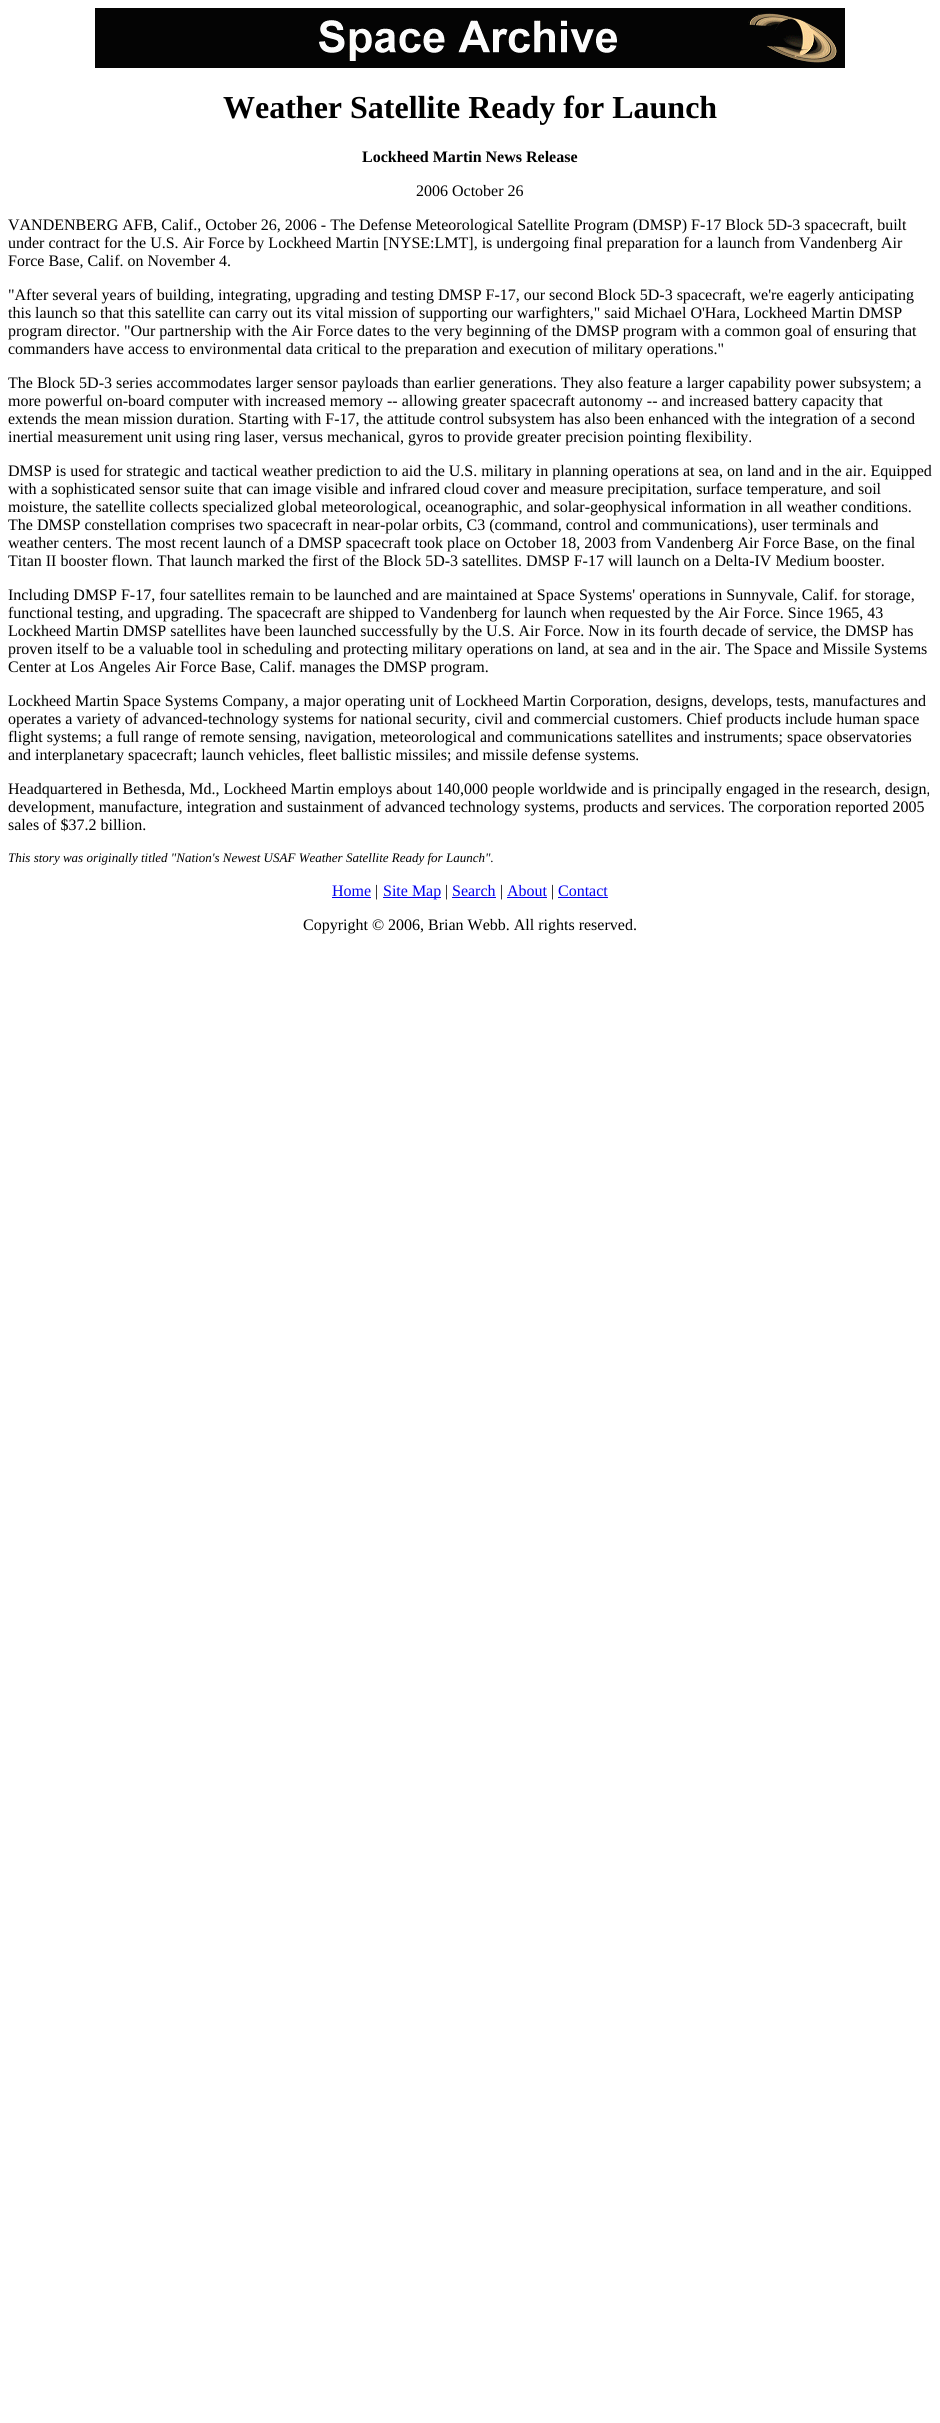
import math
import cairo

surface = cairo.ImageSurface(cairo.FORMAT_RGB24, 940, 2423)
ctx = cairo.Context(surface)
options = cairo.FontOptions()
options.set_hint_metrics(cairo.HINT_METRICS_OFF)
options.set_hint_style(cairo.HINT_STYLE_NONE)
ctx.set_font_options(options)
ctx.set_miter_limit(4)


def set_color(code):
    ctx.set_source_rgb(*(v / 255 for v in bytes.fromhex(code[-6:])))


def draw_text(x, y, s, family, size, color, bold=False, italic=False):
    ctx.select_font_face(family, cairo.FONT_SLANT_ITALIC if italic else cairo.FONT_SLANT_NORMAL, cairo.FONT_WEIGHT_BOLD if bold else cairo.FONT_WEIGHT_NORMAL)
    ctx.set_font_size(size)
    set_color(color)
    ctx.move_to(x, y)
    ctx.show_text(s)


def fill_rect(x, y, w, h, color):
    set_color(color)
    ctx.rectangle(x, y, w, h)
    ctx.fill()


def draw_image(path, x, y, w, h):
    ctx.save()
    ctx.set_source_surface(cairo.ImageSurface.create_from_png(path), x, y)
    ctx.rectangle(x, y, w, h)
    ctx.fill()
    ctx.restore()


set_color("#ffffff")
ctx.paint()
draw_image("assets/img1.png", 95, 8, 750, 60)
draw_text(223, 118, "Weather Satellite Ready for Launch", "Liberation Serif", 32, "#000000", bold=True)
draw_text(362, 162, "Lockheed Martin News Release", "Liberation Serif", 16, "#000000", bold=True)
draw_text(416, 196, "2006 October 26", "Liberation Serif", 16, "#000000")
draw_text(8, 230, "VANDENBERG AFB, Calif., October 26, 2006 - The Defense Meteorological Satellite Program (DMSP) F-17 Block 5D-3 spacecraft, built", "Liberation Serif", 16, "#000000")
draw_text(8, 248, "under contract for the U.S. Air Force by Lockheed Martin [NYSE:LMT], is undergoing final preparation for a launch from Vandenberg Air", "Liberation Serif", 16, "#000000")
draw_text(8, 266, "Force Base, Calif. on November 4.", "Liberation Serif", 16, "#000000")
draw_text(8, 300, "\"After several years of building, integrating, upgrading and testing DMSP F-17, our second Block 5D-3 spacecraft, we're eagerly anticipating", "Liberation Serif", 16, "#000000")
draw_text(8, 318, "this launch so that this satellite can carry out its vital mission of supporting our warfighters,\" said Michael O'Hara, Lockheed Martin DMSP", "Liberation Serif", 16, "#000000")
draw_text(8, 336, "program director. \"Our partnership with the Air Force dates to the very beginning of the DMSP program with a common goal of ensuring that", "Liberation Serif", 16, "#000000")
draw_text(8, 354, "commanders have access to environmental data critical to the preparation and execution of military operations.\"", "Liberation Serif", 16, "#000000")
draw_text(8, 388, "The Block 5D-3 series accommodates larger sensor payloads than earlier generations. They also feature a larger capability power subsystem; a", "Liberation Serif", 16, "#000000")
draw_text(8, 406, "more powerful on-board computer with increased memory -- allowing greater spacecraft autonomy -- and increased battery capacity that", "Liberation Serif", 16, "#000000")
draw_text(8, 424, "extends the mean mission duration. Starting with F-17, the attitude control subsystem has also been enhanced with the integration of a second", "Liberation Serif", 16, "#000000")
draw_text(8, 442, "inertial measurement unit using ring laser, versus mechanical, gyros to provide greater precision pointing flexibility.", "Liberation Serif", 16, "#000000")
draw_text(8, 476, "DMSP is used for strategic and tactical weather prediction to aid the U.S. military in planning operations at sea, on land and in the air. Equipped", "Liberation Serif", 16, "#000000")
draw_text(8, 494, "with a sophisticated sensor suite that can image visible and infrared cloud cover and measure precipitation, surface temperature, and soil", "Liberation Serif", 16, "#000000")
draw_text(8, 512, "moisture, the satellite collects specialized global meteorological, oceanographic, and solar-geophysical information in all weather conditions.", "Liberation Serif", 16, "#000000")
draw_text(8, 530, "The DMSP constellation comprises two spacecraft in near-polar orbits, C3 (command, control and communications), user terminals and", "Liberation Serif", 16, "#000000")
draw_text(8, 548, "weather centers. The most recent launch of a DMSP spacecraft took place on October 18, 2003 from Vandenberg Air Force Base, on the final", "Liberation Serif", 16, "#000000")
draw_text(8, 566, "Titan II booster flown. That launch marked the first of the Block 5D-3 satellites. DMSP F-17 will launch on a Delta-IV Medium booster.", "Liberation Serif", 16, "#000000")
draw_text(8, 600, "Including DMSP F-17, four satellites remain to be launched and are maintained at Space Systems' operations in Sunnyvale, Calif. for storage,", "Liberation Serif", 16, "#000000")
draw_text(8, 618, "functional testing, and upgrading. The spacecraft are shipped to Vandenberg for launch when requested by the Air Force. Since 1965, 43", "Liberation Serif", 16, "#000000")
draw_text(8, 636, "Lockheed Martin DMSP satellites have been launched successfully by the U.S. Air Force. Now in its fourth decade of service, the DMSP has", "Liberation Serif", 16, "#000000")
draw_text(8, 654, "proven itself to be a valuable tool in scheduling and protecting military operations on land, at sea and in the air. The Space and Missile Systems", "Liberation Serif", 16, "#000000")
draw_text(8, 672, "Center at Los Angeles Air Force Base, Calif. manages the DMSP program.", "Liberation Serif", 16, "#000000")
draw_text(8, 706, "Lockheed Martin Space Systems Company, a major operating unit of Lockheed Martin Corporation, designs, develops, tests, manufactures and", "Liberation Serif", 16, "#000000")
draw_text(8, 724, "operates a variety of advanced-technology systems for national security, civil and commercial customers. Chief products include human space", "Liberation Serif", 16, "#000000")
draw_text(8, 742, "flight systems; a full range of remote sensing, navigation, meteorological and communications satellites and instruments; space observatories", "Liberation Serif", 16, "#000000")
draw_text(8, 760, "and interplanetary spacecraft; launch vehicles, fleet ballistic missiles; and missile defense systems.", "Liberation Serif", 16, "#000000")
draw_text(8, 794, "Headquartered in Bethesda, Md., Lockheed Martin employs about 140,000 people worldwide and is principally engaged in the research, design,", "Liberation Serif", 16, "#000000")
draw_text(8, 812, "development, manufacture, integration and sustainment of advanced technology systems, products and services. The corporation reported 2005", "Liberation Serif", 16, "#000000")
draw_text(8, 830, "sales of $37.2 billion.", "Liberation Serif", 16, "#000000")
draw_text(8, 862, "This story was originally titled \"Nation's Newest USAF Weather Satellite Ready for Launch\".", "Liberation Serif", 13, "#000000", italic=True)
draw_text(332, 896, "Home", "Liberation Serif", 16, "#0000ee")
fill_rect(332, 897, 39, 1, "#0000ee")
draw_text(375, 896, "|", "Liberation Serif", 16, "#000000")
fill_rect(383, 897, 58, 1, "#0000ee")
draw_text(383, 896, "Site Map", "Liberation Serif", 16, "#0000ee")
draw_text(445, 896, "|", "Liberation Serif", 16, "#000000")
draw_text(452, 896, "Search", "Liberation Serif", 16, "#0000ee")
fill_rect(452, 897, 44, 1, "#0000ee")
draw_text(500, 896, "|", "Liberation Serif", 16, "#000000")
draw_text(507, 896, "About", "Liberation Serif", 16, "#0000ee")
fill_rect(507, 897, 40, 1, "#0000ee")
draw_text(551, 896, "|", "Liberation Serif", 16, "#000000")
draw_text(558, 896, "Contact", "Liberation Serif", 16, "#0000ee")
fill_rect(558, 897, 50, 1, "#0000ee")
draw_text(303, 930, "Copyright © 2006, Brian Webb. All rights reserved.", "Liberation Serif", 16, "#000000")
surface.write_to_png("output.png")
